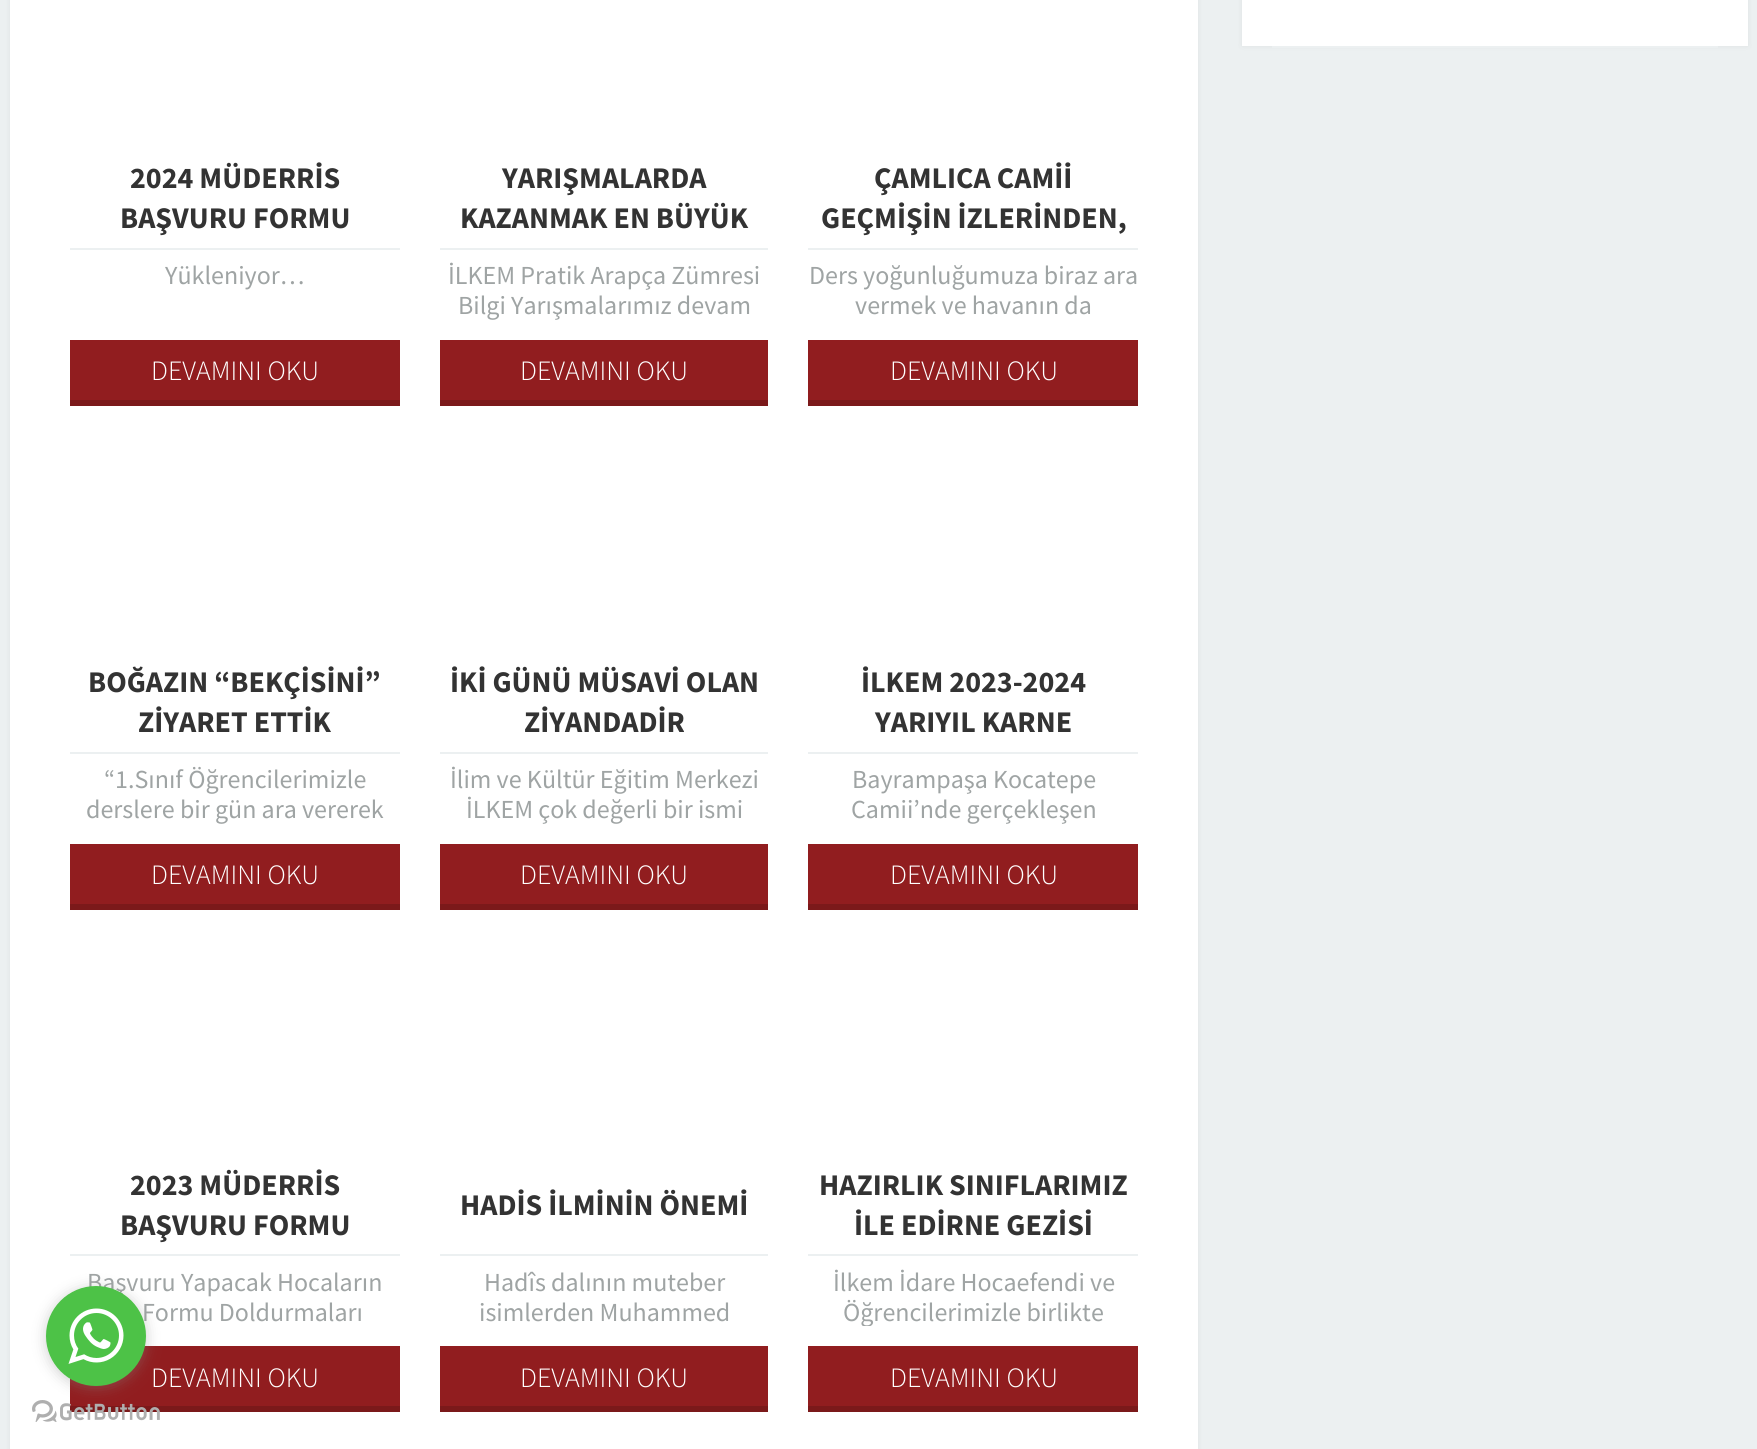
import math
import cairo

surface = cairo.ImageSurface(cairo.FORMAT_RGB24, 1757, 1449)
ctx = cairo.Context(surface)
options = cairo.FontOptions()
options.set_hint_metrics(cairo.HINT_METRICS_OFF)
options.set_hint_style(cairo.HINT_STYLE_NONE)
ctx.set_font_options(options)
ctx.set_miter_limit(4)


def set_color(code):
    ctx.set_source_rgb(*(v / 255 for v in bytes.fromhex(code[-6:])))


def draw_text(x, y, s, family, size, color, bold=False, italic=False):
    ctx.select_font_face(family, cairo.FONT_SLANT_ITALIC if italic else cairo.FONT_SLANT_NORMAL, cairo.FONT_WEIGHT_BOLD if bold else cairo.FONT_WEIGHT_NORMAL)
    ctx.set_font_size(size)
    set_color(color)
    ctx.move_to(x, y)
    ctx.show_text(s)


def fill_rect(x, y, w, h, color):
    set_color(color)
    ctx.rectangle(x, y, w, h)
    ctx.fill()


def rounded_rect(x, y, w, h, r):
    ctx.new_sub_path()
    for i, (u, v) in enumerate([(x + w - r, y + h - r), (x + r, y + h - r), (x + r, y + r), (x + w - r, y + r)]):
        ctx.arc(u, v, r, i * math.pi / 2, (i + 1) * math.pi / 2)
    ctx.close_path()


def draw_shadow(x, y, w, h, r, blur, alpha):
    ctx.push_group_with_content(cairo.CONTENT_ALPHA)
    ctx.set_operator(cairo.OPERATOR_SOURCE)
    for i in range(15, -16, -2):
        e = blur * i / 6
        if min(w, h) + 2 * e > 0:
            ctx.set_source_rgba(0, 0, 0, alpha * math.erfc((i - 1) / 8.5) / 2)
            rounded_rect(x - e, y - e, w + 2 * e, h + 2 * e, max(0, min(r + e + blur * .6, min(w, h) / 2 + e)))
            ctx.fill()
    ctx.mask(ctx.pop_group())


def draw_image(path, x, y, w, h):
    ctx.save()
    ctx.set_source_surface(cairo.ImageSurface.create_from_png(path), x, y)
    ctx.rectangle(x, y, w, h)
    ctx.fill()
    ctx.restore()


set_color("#ecf0f1")
ctx.paint()
set_color("#000000")
draw_shadow(1242, -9, 506, 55, 0, 3, 0.06)
fill_rect(1242, 0, 506, 46, "#ffffff")
fill_rect(1272, 46, 446, 2, "#ecf0f1")
set_color("#000000")
draw_shadow(10, -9, 1188, 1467, 0, 3, 0.06)
fill_rect(10, 0, 1188, 1449, "#ffffff")
draw_text(130, 188, "2024 MÜDERRİS", "Source Sans Pro", 30, "#333333", bold=True)
draw_text(120, 228, "BAŞVURU FORMU", "Source Sans Pro", 30, "#333333", bold=True)
fill_rect(70, 248, 330, 2, "#ecf0f1")
draw_text(165, 284, "Yükleniyor…", "Source Sans Pro", 26, "#9fa4a4")
fill_rect(70, 340, 330, 60, "#911d1f")
fill_rect(70, 400, 330, 6, "#7b191a")
draw_text(151, 380, "DEVAMINI OKU", "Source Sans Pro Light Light", 28, "#ffffff")
draw_text(502, 188, "YARIŞMALARDA", "Source Sans Pro", 30, "#333333", bold=True)
draw_text(460, 228, "KAZANMAK EN BÜYÜK", "Source Sans Pro", 30, "#333333", bold=True)
fill_rect(440, 248, 328, 2, "#ecf0f1")
draw_text(448, 284, "İLKEM Pratik Arapça Zümresi", "Source Sans Pro", 26, "#9fa4a4")
draw_text(458, 314, "Bilgi Yarışmalarımız devam", "Source Sans Pro", 26, "#9fa4a4")
fill_rect(440, 340, 328, 60, "#911d1f")
fill_rect(440, 400, 328, 6, "#7b191a")
draw_text(520, 380, "DEVAMINI OKU", "Source Sans Pro Light Light", 28, "#ffffff")
draw_text(874, 188, "ÇAMLICA CAMİİ", "Source Sans Pro", 30, "#333333", bold=True)
draw_text(821, 228, "GEÇMİŞİN İZLERİNDEN,", "Source Sans Pro", 30, "#333333", bold=True)
fill_rect(808, 248, 330, 2, "#ecf0f1")
draw_text(809, 284, "Ders yoğunluğumuza biraz ara", "Source Sans Pro", 26, "#9fa4a4")
draw_text(855, 314, "vermek ve havanın da", "Source Sans Pro", 26, "#9fa4a4")
fill_rect(808, 340, 330, 60, "#911d1f")
fill_rect(808, 400, 330, 6, "#7b191a")
draw_text(890, 380, "DEVAMINI OKU", "Source Sans Pro Light Light", 28, "#ffffff")
draw_text(88, 692, "BOĞAZIN “BEKÇİSİNİ”", "Source Sans Pro", 30, "#333333", bold=True)
draw_text(138, 732, "ZİYARET ETTİK", "Source Sans Pro", 30, "#333333", bold=True)
fill_rect(70, 752, 330, 2, "#ecf0f1")
draw_text(104, 788, "“1.Sınıf Öğrencilerimizle", "Source Sans Pro", 26, "#9fa4a4")
draw_text(86, 818, "derslere bir gün ara vererek", "Source Sans Pro", 26, "#9fa4a4")
fill_rect(70, 844, 330, 60, "#911d1f")
fill_rect(70, 904, 330, 6, "#7b191a")
draw_text(151, 884, "DEVAMINI OKU", "Source Sans Pro Light Light", 28, "#ffffff")
draw_text(450, 692, "İKİ GÜNÜ MÜSAVİ OLAN", "Source Sans Pro", 30, "#333333", bold=True)
draw_text(524, 732, "ZİYANDADİR", "Source Sans Pro", 30, "#333333", bold=True)
fill_rect(440, 752, 328, 2, "#ecf0f1")
draw_text(450, 788, "İlim ve Kültür Eğitim Merkezi", "Source Sans Pro", 26, "#9fa4a4")
draw_text(466, 818, "İLKEM çok değerli bir ismi", "Source Sans Pro", 26, "#9fa4a4")
fill_rect(440, 844, 328, 60, "#911d1f")
fill_rect(440, 904, 328, 6, "#7b191a")
draw_text(520, 884, "DEVAMINI OKU", "Source Sans Pro Light Light", 28, "#ffffff")
draw_text(861, 692, "İLKEM 2023-2024", "Source Sans Pro", 30, "#333333", bold=True)
draw_text(875, 732, "YARIYIL KARNE", "Source Sans Pro", 30, "#333333", bold=True)
fill_rect(808, 752, 330, 2, "#ecf0f1")
draw_text(852, 788, "Bayrampaşa Kocatepe", "Source Sans Pro", 26, "#9fa4a4")
draw_text(851, 818, "Camii’nde gerçekleşen", "Source Sans Pro", 26, "#9fa4a4")
fill_rect(808, 844, 330, 60, "#911d1f")
fill_rect(808, 904, 330, 6, "#7b191a")
draw_text(890, 884, "DEVAMINI OKU", "Source Sans Pro Light Light", 28, "#ffffff")
draw_text(130, 1195, "2023 MÜDERRİS", "Source Sans Pro", 30, "#333333", bold=True)
draw_text(120, 1235, "BAŞVURU FORMU", "Source Sans Pro", 30, "#333333", bold=True)
fill_rect(70, 1254, 330, 2, "#ecf0f1")
draw_text(87, 1291, "Başvuru Yapacak Hocaların", "Source Sans Pro", 26, "#9fa4a4")
draw_text(142, 1321, "Formu Doldurmaları", "Source Sans Pro", 26, "#9fa4a4")
fill_rect(70, 1346, 330, 60, "#911d1f")
fill_rect(70, 1406, 330, 6, "#7b191a")
draw_text(151, 1387, "DEVAMINI OKU", "Source Sans Pro Light Light", 28, "#ffffff")
draw_text(460, 1215, "HADİS İLMİNİN ÖNEMİ", "Source Sans Pro", 30, "#333333", bold=True)
fill_rect(440, 1254, 328, 2, "#ecf0f1")
draw_text(484, 1291, "Hadîs dalının muteber", "Source Sans Pro", 26, "#9fa4a4")
draw_text(479, 1321, "isimlerden Muhammed", "Source Sans Pro", 26, "#9fa4a4")
fill_rect(440, 1346, 328, 60, "#911d1f")
fill_rect(440, 1406, 328, 6, "#7b191a")
draw_text(520, 1387, "DEVAMINI OKU", "Source Sans Pro Light Light", 28, "#ffffff")
draw_text(819, 1195, "HAZIRLIK SINIFLARIMIZ", "Source Sans Pro", 30, "#333333", bold=True)
draw_text(854, 1235, "İLE EDİRNE GEZİSİ", "Source Sans Pro", 30, "#333333", bold=True)
fill_rect(808, 1254, 330, 2, "#ecf0f1")
draw_text(833, 1291, "İlkem İdare Hocaefendi ve", "Source Sans Pro", 26, "#9fa4a4")
ctx.save()
ctx.rectangle(808, 1256, 330, 70)
ctx.clip()
draw_text(843, 1321, "Öğrencilerimizle birlikte", "Source Sans Pro", 26, "#9fa4a4")
ctx.restore()
fill_rect(808, 1346, 330, 60, "#911d1f")
fill_rect(808, 1406, 330, 6, "#7b191a")
draw_text(890, 1387, "DEVAMINI OKU", "Source Sans Pro Light Light", 28, "#ffffff")
draw_image("assets/img2.png", 32, 1400, 128, 22)
set_color("#888888")
draw_shadow(46, 1288, 100, 100, 50, 7, 0.4)
set_color("#4dc247")
ctx.arc(96, 1336, 50, 0, 2 * math.pi)
ctx.fill()
draw_image("assets/img1.png", 68, 1308, 56, 56)
surface.write_to_png("output.png")
